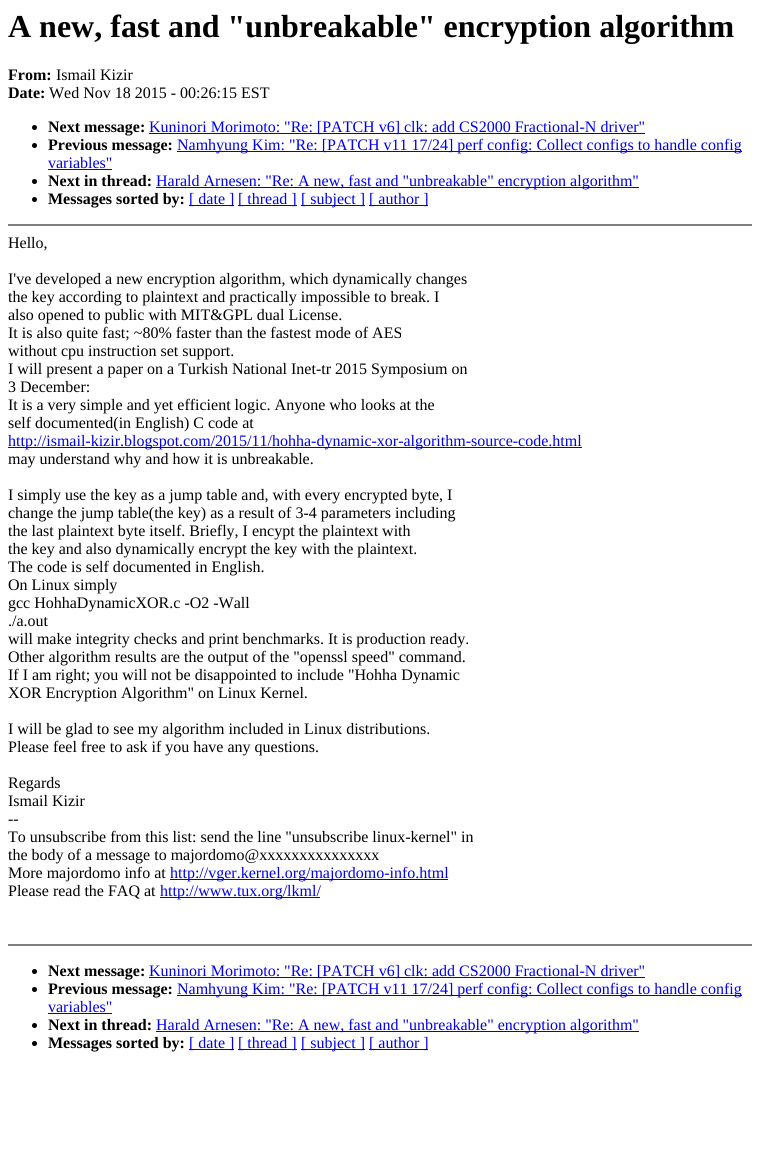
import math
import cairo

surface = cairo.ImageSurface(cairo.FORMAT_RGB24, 760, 1161)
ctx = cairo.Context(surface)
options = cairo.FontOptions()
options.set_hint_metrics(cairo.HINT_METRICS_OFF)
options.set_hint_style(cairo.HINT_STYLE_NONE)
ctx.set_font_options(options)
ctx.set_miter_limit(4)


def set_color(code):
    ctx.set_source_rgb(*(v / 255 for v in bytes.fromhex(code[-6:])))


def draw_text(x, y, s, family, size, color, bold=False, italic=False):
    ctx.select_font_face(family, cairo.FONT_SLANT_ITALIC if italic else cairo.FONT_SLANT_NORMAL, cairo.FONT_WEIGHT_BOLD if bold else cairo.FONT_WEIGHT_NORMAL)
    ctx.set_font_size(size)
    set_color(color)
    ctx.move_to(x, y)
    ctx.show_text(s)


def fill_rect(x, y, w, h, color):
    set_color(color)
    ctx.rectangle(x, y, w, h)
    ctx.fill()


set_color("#ffffff")
ctx.paint()
draw_text(8, 37, "A new, fast and \"unbreakable\" encryption algorithm", "Liberation Serif", 32, "#000000", bold=True)
draw_text(8, 80, "From:", "Liberation Serif", 16, "#000000", bold=True)
draw_text(56, 80, "Ismail Kizir", "Liberation Serif", 16, "#000000")
draw_text(8, 98, "Date:", "Liberation Serif", 16, "#000000", bold=True)
draw_text(49, 98, "Wed Nov 18 2015 - 00:26:15 EST", "Liberation Serif", 16, "#000000")
ctx.new_path()
ctx.arc(34.5, 127.5, 2.5, 0, 2 * math.pi)
ctx.fill()
draw_text(48, 132, "Next message:", "Liberation Serif", 16, "#000000", bold=True)
fill_rect(149, 133, 496, 1, "#0000ee")
draw_text(149, 132, "Kuninori Morimoto: \"Re: [PATCH v6] clk: add CS2000 Fractional-N driver\"", "Liberation Serif", 16, "#0000ee")
set_color("#000000")
ctx.new_path()
ctx.arc(34.5, 145.5, 2.5, 0, 2 * math.pi)
ctx.fill()
draw_text(48, 150, "Previous message:", "Liberation Serif", 16, "#000000", bold=True)
fill_rect(177, 151, 565, 1, "#0000ee")
draw_text(177, 150, "Namhyung Kim: \"Re: [PATCH v11 17/24] perf config: Collect configs to handle config", "Liberation Serif", 16, "#0000ee")
draw_text(48, 168, "variables\"", "Liberation Serif", 16, "#0000ee")
fill_rect(48, 169, 64, 1, "#0000ee")
set_color("#000000")
ctx.new_path()
ctx.arc(34.5, 181.5, 2.5, 0, 2 * math.pi)
ctx.fill()
draw_text(48, 186, "Next in thread:", "Liberation Serif", 16, "#000000", bold=True)
fill_rect(156, 187, 483, 1, "#0000ee")
draw_text(156, 186, "Harald Arnesen: \"Re: A new, fast and \"unbreakable\" encryption algorithm\"", "Liberation Serif", 16, "#0000ee")
set_color("#000000")
ctx.new_path()
ctx.arc(34.5, 199.5, 2.5, 0, 2 * math.pi)
ctx.fill()
draw_text(48, 204, "Messages sorted by:", "Liberation Serif", 16, "#000000", bold=True)
fill_rect(189, 205, 45, 1, "#0000ee")
draw_text(189, 204, "[ date ]", "Liberation Serif", 16, "#0000ee")
fill_rect(238, 205, 59, 1, "#0000ee")
draw_text(238, 204, "[ thread ]", "Liberation Serif", 16, "#0000ee")
fill_rect(301, 205, 64, 1, "#0000ee")
draw_text(301, 204, "[ subject ]", "Liberation Serif", 16, "#0000ee")
fill_rect(369, 205, 59, 1, "#0000ee")
draw_text(369, 204, "[ author ]", "Liberation Serif", 16, "#0000ee")
fill_rect(8, 224, 744, 2, "#808080")
draw_text(8, 248, "Hello,", "Liberation Serif", 16, "#000000")
draw_text(8, 284, "I've developed a new encryption algorithm, which dynamically changes", "Liberation Serif", 16, "#000000")
draw_text(8, 302, "the key according to plaintext and practically impossible to break. I", "Liberation Serif", 16, "#000000")
draw_text(8, 320, "also opened to public with MIT&GPL dual License.", "Liberation Serif", 16, "#000000")
draw_text(8, 338, "It is also quite fast; ~80% faster than the fastest mode of AES", "Liberation Serif", 16, "#000000")
draw_text(8, 356, "without cpu instruction set support.", "Liberation Serif", 16, "#000000")
draw_text(8, 374, "I will present a paper on a Turkish National Inet-tr 2015 Symposium on", "Liberation Serif", 16, "#000000")
draw_text(8, 392, "3 December:", "Liberation Serif", 16, "#000000")
draw_text(8, 410, "It is a very simple and yet efficient logic. Anyone who looks at the", "Liberation Serif", 16, "#000000")
draw_text(8, 428, "self documented(in English) C code at", "Liberation Serif", 16, "#000000")
fill_rect(8, 447, 574, 1, "#0000ee")
draw_text(8, 446, "http://ismail-kizir.blogspot.com/2015/11/hohha-dynamic-xor-algorithm-source-code.html", "Liberation Serif", 16, "#0000ee")
draw_text(8, 464, "may understand why and how it is unbreakable.", "Liberation Serif", 16, "#000000")
draw_text(8, 500, "I simply use the key as a jump table and, with every encrypted byte, I", "Liberation Serif", 16, "#000000")
draw_text(8, 518, "change the jump table(the key) as a result of 3-4 parameters including", "Liberation Serif", 16, "#000000")
draw_text(8, 536, "the last plaintext byte itself. Briefly, I encypt the plaintext with", "Liberation Serif", 16, "#000000")
draw_text(8, 554, "the key and also dynamically encrypt the key with the plaintext.", "Liberation Serif", 16, "#000000")
draw_text(8, 572, "The code is self documented in English.", "Liberation Serif", 16, "#000000")
draw_text(8, 590, "On Linux simply", "Liberation Serif", 16, "#000000")
draw_text(8, 608, "gcc HohhaDynamicXOR.c -O2 -Wall", "Liberation Serif", 16, "#000000")
draw_text(8, 626, "./a.out", "Liberation Serif", 16, "#000000")
draw_text(8, 644, "will make integrity checks and print benchmarks. It is production ready.", "Liberation Serif", 16, "#000000")
draw_text(8, 662, "Other algorithm results are the output of the \"openssl speed\" command.", "Liberation Serif", 16, "#000000")
draw_text(8, 680, "If I am right; you will not be disappointed to include \"Hohha Dynamic", "Liberation Serif", 16, "#000000")
draw_text(8, 698, "XOR Encryption Algorithm\" on Linux Kernel.", "Liberation Serif", 16, "#000000")
draw_text(8, 734, "I will be glad to see my algorithm included in Linux distributions.", "Liberation Serif", 16, "#000000")
draw_text(8, 752, "Please feel free to ask if you have any questions.", "Liberation Serif", 16, "#000000")
draw_text(8, 788, "Regards", "Liberation Serif", 16, "#000000")
draw_text(8, 806, "Ismail Kizir", "Liberation Serif", 16, "#000000")
draw_text(8, 824, "--", "Liberation Serif", 16, "#000000")
draw_text(8, 842, "To unsubscribe from this list: send the line \"unsubscribe linux-kernel\" in", "Liberation Serif", 16, "#000000")
draw_text(8, 860, "the body of a message to majordomo@xxxxxxxxxxxxxxx", "Liberation Serif", 16, "#000000")
draw_text(8, 878, "More majordomo info at", "Liberation Serif", 16, "#000000")
fill_rect(170, 879, 278, 1, "#0000ee")
draw_text(170, 878, "http://vger.kernel.org/majordomo-info.html", "Liberation Serif", 16, "#0000ee")
draw_text(8, 896, "Please read the FAQ at", "Liberation Serif", 16, "#000000")
fill_rect(160, 897, 160, 1, "#0000ee")
draw_text(160, 896, "http://www.tux.org/lkml/", "Liberation Serif", 16, "#0000ee")
fill_rect(8, 944, 744, 2, "#808080")
set_color("#000000")
ctx.new_path()
ctx.arc(34.5, 971.5, 2.5, 0, 2 * math.pi)
ctx.fill()
draw_text(48, 976, "Next message:", "Liberation Serif", 16, "#000000", bold=True)
fill_rect(149, 977, 496, 1, "#0000ee")
draw_text(149, 976, "Kuninori Morimoto: \"Re: [PATCH v6] clk: add CS2000 Fractional-N driver\"", "Liberation Serif", 16, "#0000ee")
set_color("#000000")
ctx.new_path()
ctx.arc(34.5, 989.5, 2.5, 0, 2 * math.pi)
ctx.fill()
draw_text(48, 994, "Previous message:", "Liberation Serif", 16, "#000000", bold=True)
fill_rect(177, 995, 565, 1, "#0000ee")
draw_text(177, 994, "Namhyung Kim: \"Re: [PATCH v11 17/24] perf config: Collect configs to handle config", "Liberation Serif", 16, "#0000ee")
draw_text(48, 1012, "variables\"", "Liberation Serif", 16, "#0000ee")
fill_rect(48, 1013, 64, 1, "#0000ee")
set_color("#000000")
ctx.new_path()
ctx.arc(34.5, 1025.5, 2.5, 0, 2 * math.pi)
ctx.fill()
draw_text(48, 1030, "Next in thread:", "Liberation Serif", 16, "#000000", bold=True)
fill_rect(156, 1031, 483, 1, "#0000ee")
draw_text(156, 1030, "Harald Arnesen: \"Re: A new, fast and \"unbreakable\" encryption algorithm\"", "Liberation Serif", 16, "#0000ee")
set_color("#000000")
ctx.new_path()
ctx.arc(34.5, 1043.5, 2.5, 0, 2 * math.pi)
ctx.fill()
draw_text(48, 1048, "Messages sorted by:", "Liberation Serif", 16, "#000000", bold=True)
fill_rect(189, 1049, 45, 1, "#0000ee")
draw_text(189, 1048, "[ date ]", "Liberation Serif", 16, "#0000ee")
fill_rect(238, 1049, 59, 1, "#0000ee")
draw_text(238, 1048, "[ thread ]", "Liberation Serif", 16, "#0000ee")
fill_rect(301, 1049, 64, 1, "#0000ee")
draw_text(301, 1048, "[ subject ]", "Liberation Serif", 16, "#0000ee")
fill_rect(369, 1049, 59, 1, "#0000ee")
draw_text(369, 1048, "[ author ]", "Liberation Serif", 16, "#0000ee")
surface.write_to_png("output.png")
